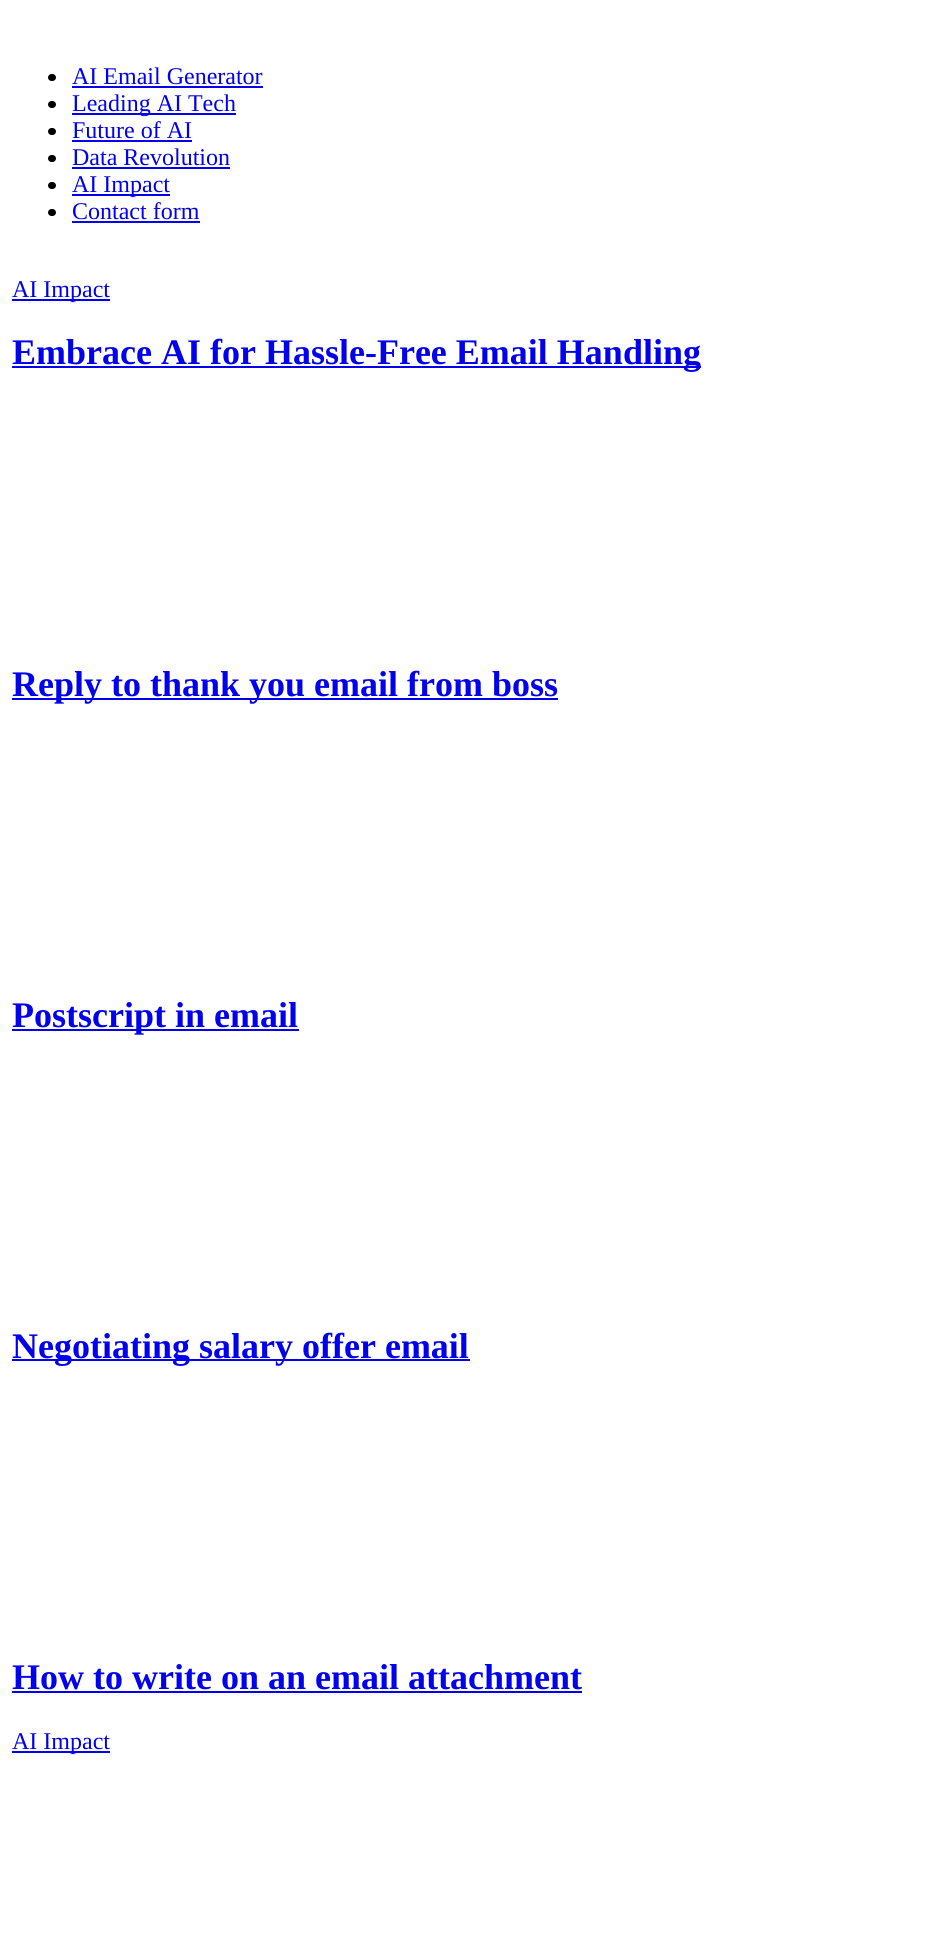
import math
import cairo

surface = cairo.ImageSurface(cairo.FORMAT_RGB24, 941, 1945)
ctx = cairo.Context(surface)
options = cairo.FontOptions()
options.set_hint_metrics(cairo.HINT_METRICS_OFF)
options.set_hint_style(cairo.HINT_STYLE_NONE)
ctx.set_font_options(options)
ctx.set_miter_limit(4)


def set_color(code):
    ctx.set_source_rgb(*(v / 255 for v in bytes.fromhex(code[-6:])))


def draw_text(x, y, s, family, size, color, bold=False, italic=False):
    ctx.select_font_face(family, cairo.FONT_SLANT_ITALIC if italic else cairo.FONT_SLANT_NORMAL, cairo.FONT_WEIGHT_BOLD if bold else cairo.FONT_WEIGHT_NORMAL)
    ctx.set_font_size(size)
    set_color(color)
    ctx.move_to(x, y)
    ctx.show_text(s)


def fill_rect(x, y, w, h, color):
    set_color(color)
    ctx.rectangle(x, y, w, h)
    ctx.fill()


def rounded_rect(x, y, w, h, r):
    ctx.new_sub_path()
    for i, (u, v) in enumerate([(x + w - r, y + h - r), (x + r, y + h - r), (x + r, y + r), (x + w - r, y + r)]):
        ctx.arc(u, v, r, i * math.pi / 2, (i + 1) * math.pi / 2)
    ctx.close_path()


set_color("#ffffff")
ctx.paint()
set_color("#000000")
rounded_rect(48, 74, 8, 7, 3.5)
ctx.fill()
draw_text(72, 84, "AI Email Generator", "Liberation Serif", 24, "#0000ee")
fill_rect(72, 86, 191, 2, "#0000ee")
set_color("#000000")
rounded_rect(48, 101, 8, 7, 3.5)
ctx.fill()
fill_rect(72, 113, 164, 2, "#0000ee")
draw_text(72, 111, "Leading AI Tech", "Liberation Serif", 24, "#0000ee")
set_color("#000000")
rounded_rect(48, 128, 8, 7, 3.5)
ctx.fill()
draw_text(72, 138, "Future of AI", "Liberation Serif", 24, "#0000ee")
fill_rect(72, 140, 120, 2, "#0000ee")
set_color("#000000")
rounded_rect(48, 155, 8, 7, 3.5)
ctx.fill()
draw_text(72, 165, "Data Revolution", "Liberation Serif", 24, "#0000ee")
fill_rect(72, 167, 158, 2, "#0000ee")
set_color("#000000")
rounded_rect(48, 182, 8, 7, 3.5)
ctx.fill()
fill_rect(72, 194, 98, 2, "#0000ee")
draw_text(72, 192, "AI Impact", "Liberation Serif", 24, "#0000ee")
set_color("#000000")
rounded_rect(48, 209, 8, 7, 3.5)
ctx.fill()
draw_text(72, 219, "Contact form", "Liberation Serif", 24, "#0000ee")
fill_rect(72, 221, 128, 2, "#0000ee")
fill_rect(12, 299, 98, 2, "#0000ee")
draw_text(12, 297, "AI Impact", "Liberation Serif", 24, "#0000ee")
fill_rect(12, 366, 689, 2, "#0000ee")
draw_text(12, 364, "Embrace AI for Hassle-Free Email Handling", "Liberation Serif", 36, "#0000ee", bold=True)
fill_rect(12, 698, 546, 2, "#0000ee")
draw_text(12, 696, "Reply to thank you email from boss", "Liberation Serif", 36, "#0000ee", bold=True)
fill_rect(12, 1029, 287, 2, "#0000ee")
draw_text(12, 1027, "Postscript in email", "Liberation Serif", 36, "#0000ee", bold=True)
fill_rect(12, 1359, 458, 2, "#0000ee")
draw_text(12, 1358, "Negotiating salary offer email", "Liberation Serif", 36, "#0000ee", bold=True)
draw_text(12, 1689, "How to write on an email attachment", "Liberation Serif", 36, "#0000ee", bold=True)
fill_rect(12, 1691, 570, 2, "#0000ee")
fill_rect(12, 1751, 98, 2, "#0000ee")
draw_text(12, 1749, "AI Impact", "Liberation Serif", 24, "#0000ee")
surface.write_to_png("output.png")
